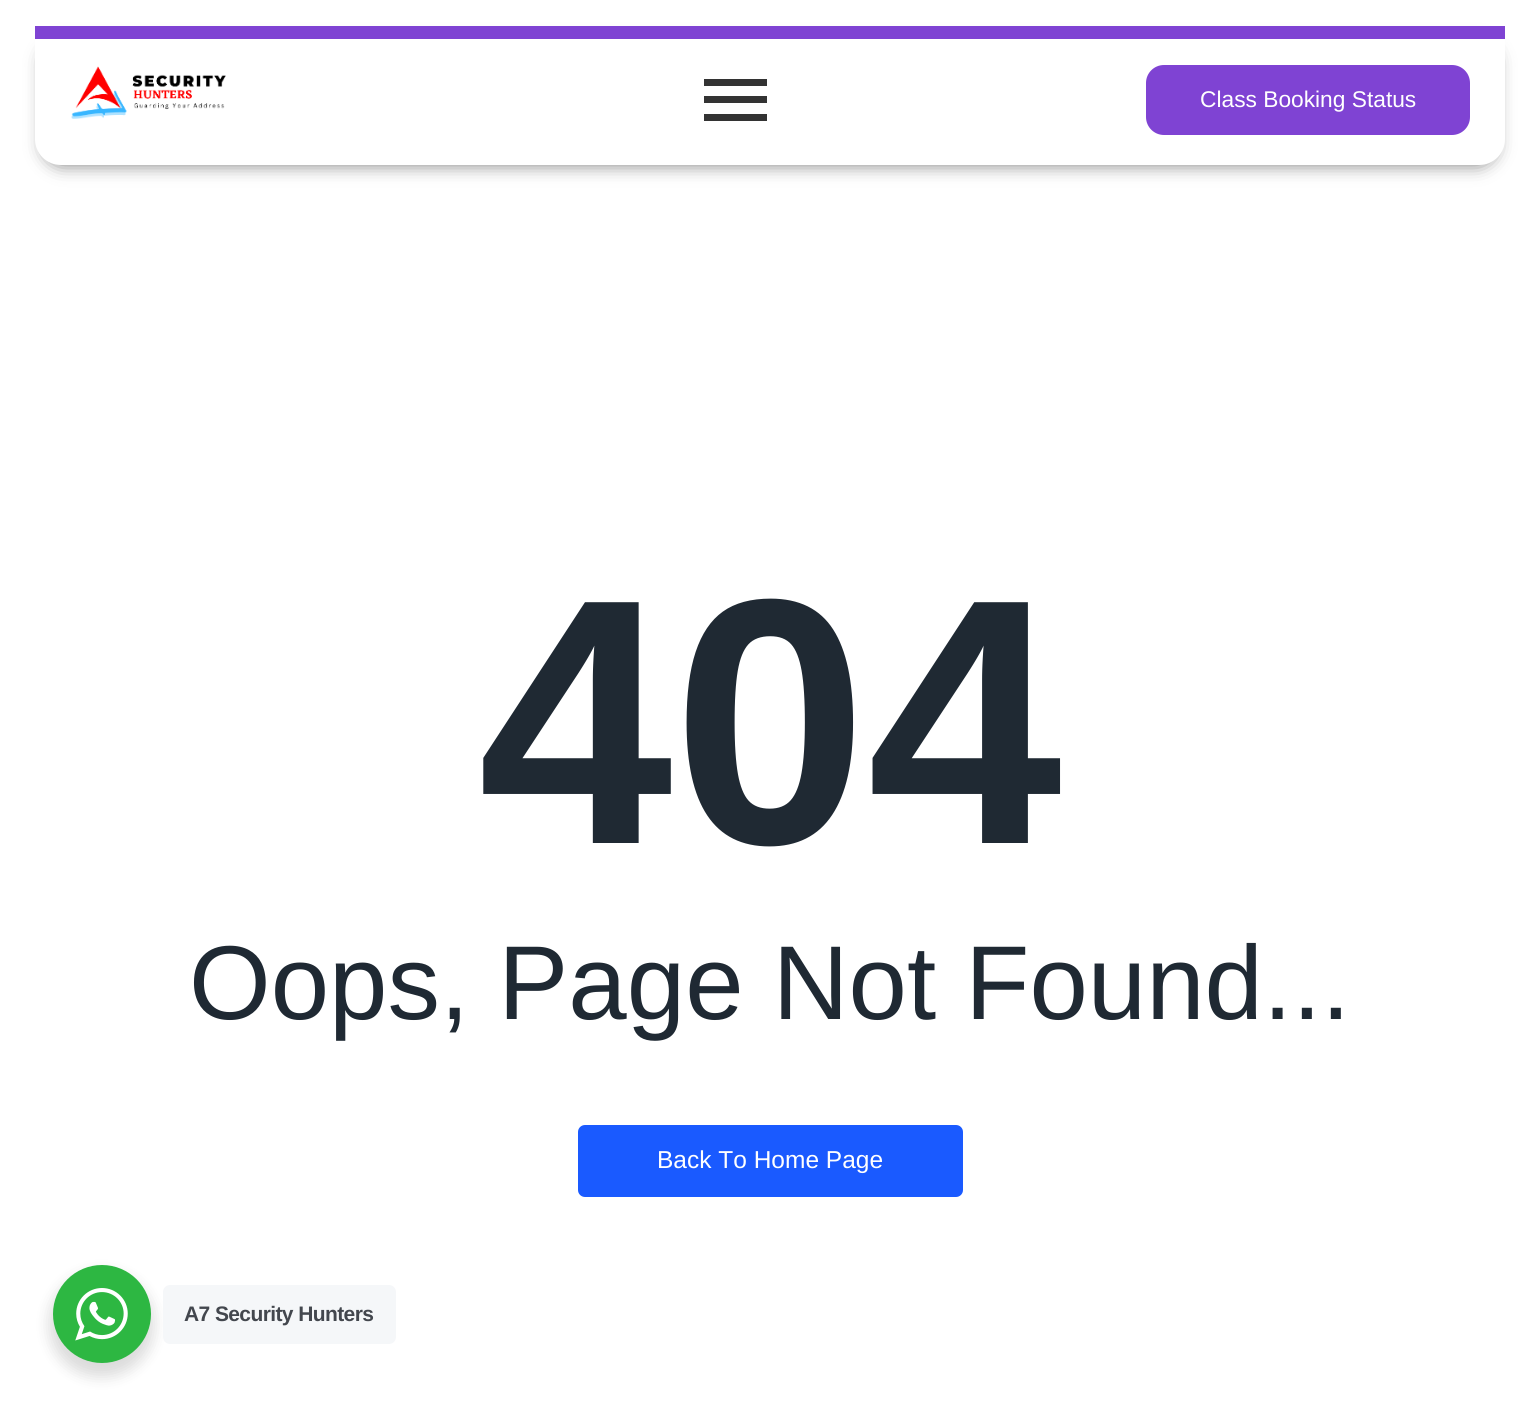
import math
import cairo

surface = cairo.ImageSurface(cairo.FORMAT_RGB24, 1539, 1415)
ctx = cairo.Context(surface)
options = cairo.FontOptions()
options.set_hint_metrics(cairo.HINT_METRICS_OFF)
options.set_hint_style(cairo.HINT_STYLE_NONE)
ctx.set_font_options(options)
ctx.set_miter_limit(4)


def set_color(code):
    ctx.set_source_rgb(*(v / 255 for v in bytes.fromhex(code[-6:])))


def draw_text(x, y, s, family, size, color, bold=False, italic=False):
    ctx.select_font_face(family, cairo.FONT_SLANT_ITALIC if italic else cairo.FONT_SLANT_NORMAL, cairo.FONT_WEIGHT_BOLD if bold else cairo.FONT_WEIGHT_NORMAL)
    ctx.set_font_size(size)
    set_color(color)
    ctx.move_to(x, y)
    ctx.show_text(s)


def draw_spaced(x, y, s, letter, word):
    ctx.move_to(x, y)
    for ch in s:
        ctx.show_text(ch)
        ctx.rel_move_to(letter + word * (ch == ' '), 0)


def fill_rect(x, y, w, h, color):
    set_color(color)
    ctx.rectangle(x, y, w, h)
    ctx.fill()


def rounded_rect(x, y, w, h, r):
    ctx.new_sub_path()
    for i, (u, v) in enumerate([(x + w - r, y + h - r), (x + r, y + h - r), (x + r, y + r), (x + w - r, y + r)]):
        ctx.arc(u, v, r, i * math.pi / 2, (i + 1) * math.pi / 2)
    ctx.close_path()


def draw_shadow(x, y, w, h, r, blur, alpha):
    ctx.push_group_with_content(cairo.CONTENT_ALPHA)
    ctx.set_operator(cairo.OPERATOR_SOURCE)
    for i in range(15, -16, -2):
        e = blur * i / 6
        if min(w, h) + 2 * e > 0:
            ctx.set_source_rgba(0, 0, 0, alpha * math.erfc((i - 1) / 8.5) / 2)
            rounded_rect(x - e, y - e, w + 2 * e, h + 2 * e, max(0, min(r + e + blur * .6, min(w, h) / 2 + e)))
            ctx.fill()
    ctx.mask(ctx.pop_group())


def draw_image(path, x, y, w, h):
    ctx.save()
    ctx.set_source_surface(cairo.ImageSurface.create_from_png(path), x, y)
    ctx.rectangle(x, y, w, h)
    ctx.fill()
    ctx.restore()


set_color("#ffffff")
ctx.paint()
set_color("#000000")
draw_shadow(44, 44, 1452, 121, 18, 9, 0.5)
set_color("#ffffff")
ctx.new_path()
ctx.move_to(35, 39)
ctx.line_to(1505, 39)
ctx.line_to(1505, 139)
ctx.curve_to(1505, 153.5, 1493.5, 165, 1479, 165)
ctx.line_to(61, 165)
ctx.curve_to(46.5, 165, 35, 153.5, 35, 139)
ctx.close_path()
ctx.fill()
fill_rect(35, 26, 1470, 13, "#7f43d3")
draw_image("assets/img1.png", 71, 66, 155, 53)
fill_rect(704, 79, 63, 7, "#333333")
fill_rect(704, 96, 63, 7, "#333333")
fill_rect(704, 114, 63, 7, "#333333")
set_color("#7f43d3")
rounded_rect(1146, 65, 324, 70, 18)
ctx.fill()
draw_text(1200, 107, "Class Booking Status", "Liberation Sans", 22.75, "#ffffff")
draw_text(478, 843, "404", "Liberation Sans", 350, "#1f2933", bold=True)
draw_text(189, 1019, "Oops, Page Not Found...", "Liberation Sans", 105, "#1f2933")
set_color("#1a5aff")
rounded_rect(578, 1125, 385, 72, 7)
ctx.fill()
draw_text(657, 1168, "Back To Home Page", "Liberation Sans", 24.5, "#ffffff")
set_color("#000000")
draw_shadow(49, 1272, 105, 105, 52.5, 7, 0.14)
set_color("#2db742")
ctx.arc(102, 1314, 49, 0, 2 * math.pi)
ctx.fill()
draw_image("assets/img2.png", 75, 1288, 53, 53)
set_color("#f5f7f9")
rounded_rect(163, 1285, 233, 59, 7)
ctx.fill()
ctx.select_font_face("Liberation Sans", cairo.FONT_SLANT_NORMAL, cairo.FONT_WEIGHT_BOLD)
ctx.set_font_size(21)
set_color("#43474e")
draw_spaced(184, 1321, "A7 Security Hunters", -0.6, 0)
surface.write_to_png("output.png")
